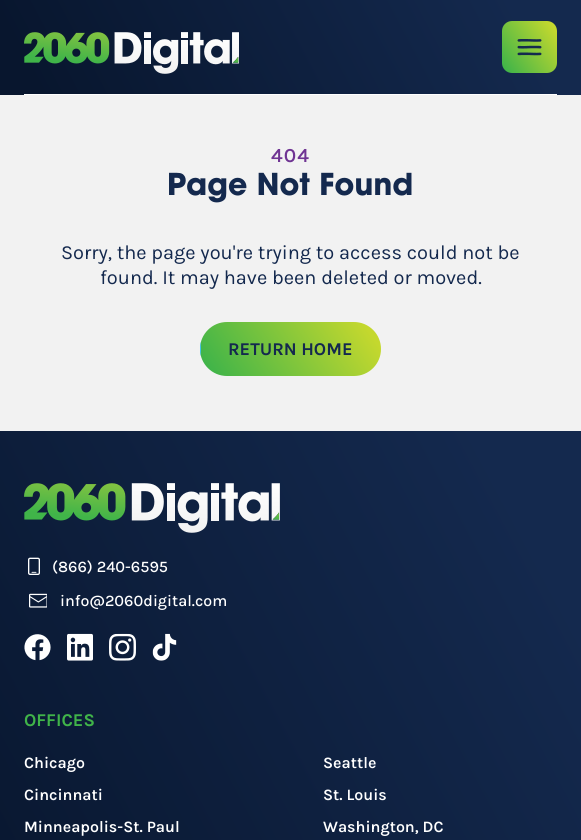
import math
import cairo

surface = cairo.ImageSurface(cairo.FORMAT_RGB24, 581, 840)
ctx = cairo.Context(surface)
options = cairo.FontOptions()
options.set_hint_metrics(cairo.HINT_METRICS_OFF)
options.set_hint_style(cairo.HINT_STYLE_NONE)
ctx.set_font_options(options)
ctx.set_miter_limit(4)


def set_color(code):
    ctx.set_source_rgb(*(v / 255 for v in bytes.fromhex(code[-6:])))


def draw_text(x, y, s, family, size, color, bold=False, italic=False):
    ctx.select_font_face(family, cairo.FONT_SLANT_ITALIC if italic else cairo.FONT_SLANT_NORMAL, cairo.FONT_WEIGHT_BOLD if bold else cairo.FONT_WEIGHT_NORMAL)
    ctx.set_font_size(size)
    set_color(color)
    ctx.move_to(x, y)
    ctx.show_text(s)


def draw_spaced(x, y, s, letter, word):
    ctx.move_to(x, y)
    for ch in s:
        ctx.show_text(ch)
        ctx.rel_move_to(letter + word * (ch == ' '), 0)


def fill_rect(x, y, w, h, color):
    set_color(color)
    ctx.rectangle(x, y, w, h)
    ctx.fill()


def rounded_rect(x, y, w, h, r):
    ctx.new_sub_path()
    for i, (u, v) in enumerate([(x + w - r, y + h - r), (x + r, y + h - r), (x + r, y + r), (x + w - r, y + r)]):
        ctx.arc(u, v, r, i * math.pi / 2, (i + 1) * math.pi / 2)
    ctx.close_path()


def draw_image(path, x, y, w, h):
    ctx.save()
    ctx.set_source_surface(cairo.ImageSurface.create_from_png(path), x, y)
    ctx.rectangle(x, y, w, h)
    ctx.fill()
    ctx.restore()


set_color("#f2f2f2")
ctx.paint()
gradient = cairo.LinearGradient(44, 178, 537, -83)
gradient.add_color_stop_rgba(0.06, 0.031, 0.086, 0.18, 1)
gradient.add_color_stop_rgba(0.89, 0.078, 0.161, 0.306, 1)
ctx.set_source(gradient)
ctx.rectangle(0, 0, 581, 95)
ctx.fill()
fill_rect(24, 94, 533, 1, "#ffffff")
draw_image("assets/img1.png", 24, 32, 215, 42)
draw_image("assets/img2.png", 502, 21, 55, 52)
ctx.select_font_face("Karla SemiBold")
ctx.set_font_size(20)
set_color("#6f3493")
draw_spaced(271, 162, "404", 1, 0)
draw_image("assets/img3.png", 169, 172, 243, 31)
draw_text(61, 259, "Sorry, the page you're trying to access could not be", "Karla", 20, "#14294e")
draw_text(100, 284, "found. It may have been deleted or moved.", "Karla", 20, "#14294e")
gradient = cairo.LinearGradient(216, 399, 365, 299)
gradient.add_color_stop_rgba(0.06, 0.251, 0.706, 0.286, 1)
gradient.add_color_stop_rgba(0.92, 0.769, 0.847, 0.18, 1)
ctx.set_source(gradient)
rounded_rect(200, 322, 181, 54, 27)
ctx.fill()
ctx.save()
rounded_rect(200, 322, 181, 54, 27)
ctx.clip()
fill_rect(200, 342, 1, 14, "#44c4f2")
ctx.restore()
draw_text(228, 355, "RETURN HOME", "Karla", 18, "#14294e", bold=True)
gradient = cairo.LinearGradient(-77, 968, 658, 576)
gradient.add_color_stop_rgba(0.06, 0.031, 0.086, 0.18, 1)
gradient.add_color_stop_rgba(0.89, 0.078, 0.161, 0.306, 1)
ctx.set_source(gradient)
ctx.rectangle(0, 431, 581, 409)
ctx.fill()
draw_image("assets/img4.png", 24, 483, 256, 50)
draw_image("assets/img5.png", 28, 557, 12, 18)
draw_text(52, 572, "(866) 240-6595", "Karla Medium", 16, "#ffffff")
draw_image("assets/img6.png", 29, 593, 18, 15)
draw_text(60, 606, "info@2060digital.com", "Karla Medium", 16, "#ffffff")
draw_image("assets/img7.png", 24, 634, 27, 27)
draw_image("assets/img8.png", 67, 633, 26, 28)
draw_image("assets/img9.png", 109, 633, 27, 28)
draw_image("assets/img10.png", 152, 633, 25, 28)
draw_text(24, 726, "OFFICES", "Karla", 18, "#40b449", bold=True)
draw_text(24, 768, "Chicago", "Karla SemiBold", 16, "#ffffff")
draw_text(323, 768, "Seattle", "Karla SemiBold", 16, "#ffffff")
draw_text(24, 800, "Cincinnati", "Karla SemiBold", 16, "#ffffff")
draw_text(323, 800, "St. Louis", "Karla SemiBold", 16, "#ffffff")
draw_text(24, 832, "Minneapolis-St. Paul", "Karla SemiBold", 16, "#ffffff")
draw_text(323, 832, "Washington, DC", "Karla SemiBold", 16, "#ffffff")
surface.write_to_png("output.png")
